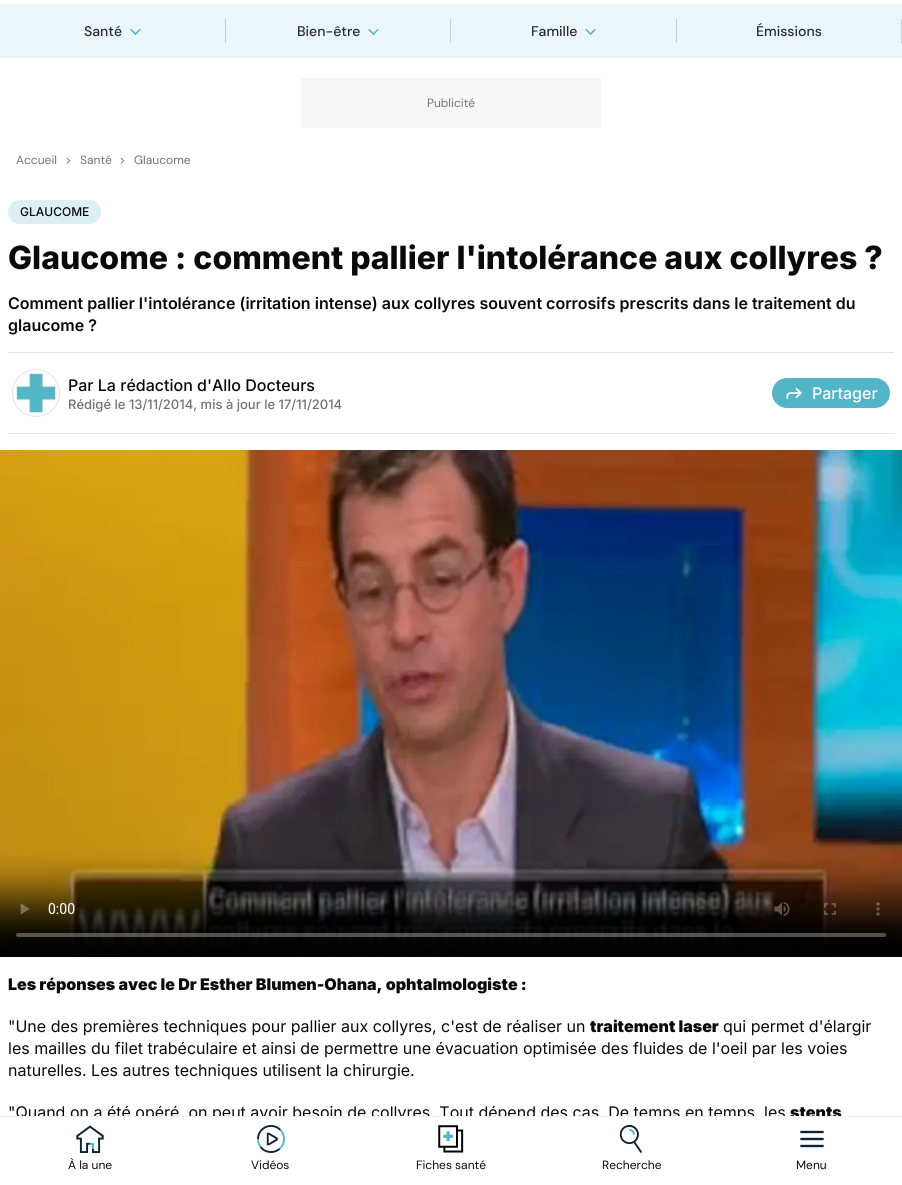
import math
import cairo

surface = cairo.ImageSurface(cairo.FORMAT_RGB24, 902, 1185)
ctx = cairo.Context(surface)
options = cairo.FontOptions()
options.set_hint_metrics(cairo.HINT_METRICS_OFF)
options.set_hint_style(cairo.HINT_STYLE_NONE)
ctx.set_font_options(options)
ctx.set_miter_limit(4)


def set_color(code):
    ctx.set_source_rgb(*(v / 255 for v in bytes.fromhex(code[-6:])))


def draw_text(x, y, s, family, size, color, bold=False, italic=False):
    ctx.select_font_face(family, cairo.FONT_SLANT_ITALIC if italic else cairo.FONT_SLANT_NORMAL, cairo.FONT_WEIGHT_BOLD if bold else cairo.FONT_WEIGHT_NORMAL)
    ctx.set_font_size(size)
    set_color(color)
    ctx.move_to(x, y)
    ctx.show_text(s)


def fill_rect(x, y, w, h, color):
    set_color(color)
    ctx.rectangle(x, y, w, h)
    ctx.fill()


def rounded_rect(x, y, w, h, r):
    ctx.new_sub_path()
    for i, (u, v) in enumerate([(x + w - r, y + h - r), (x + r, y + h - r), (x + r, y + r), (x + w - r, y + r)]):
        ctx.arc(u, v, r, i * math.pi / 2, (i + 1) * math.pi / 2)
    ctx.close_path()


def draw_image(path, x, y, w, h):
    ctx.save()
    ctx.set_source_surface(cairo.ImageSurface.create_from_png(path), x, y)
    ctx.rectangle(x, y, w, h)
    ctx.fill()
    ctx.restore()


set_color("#ffffff")
ctx.paint()
fill_rect(0, 4, 902, 54, "#eaf6f9")
draw_text(84, 36, "Santé", "DM Sans Medium", 14, "#2a2a2a")
draw_image("assets/img1.png", 130, 28, 11, 8)
fill_rect(225, 19, 1, 24, "#c4cdcf")
draw_text(297, 36, "Bien-être", "DM Sans Medium", 14, "#2a2a2a")
draw_image("assets/img1.png", 368, 28, 11, 8)
fill_rect(450, 19, 1, 24, "#c4cdcf")
draw_text(531, 36, "Famille", "DM Sans Medium", 14, "#2a2a2a")
draw_image("assets/img1.png", 585, 28, 11, 8)
fill_rect(676, 19, 1, 24, "#c4cdcf")
draw_text(756, 36, "Émissions", "DM Sans Medium", 14, "#2a2a2a")
fill_rect(901, 19, 1, 24, "#c4cdcf")
draw_text(8, 1118, "\"Quand on a été opéré, on peut avoir besoin de collyres. Tout dépend des cas. De temps en temps, les", "Inter", 16, "#0a0a0a")
draw_text(790, 1118, "stents", "Inter Black", 16, "#0a0a0a")
fill_rect(18, 1117, 823, 5, "#ffffff")
ctx.rectangle(-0.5, 1116.5, 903, 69)
set_color("#f0f0f0")
ctx.set_line_width(1)
ctx.stroke()
draw_image("assets/img2.png", 76, 1125, 28, 28)
draw_text(68, 1169, "À la une", "DM Sans", 12, "#0a0a0a")
draw_image("assets/img3.png", 257, 1125, 28, 28)
draw_text(251, 1169, "Vidéos", "DM Sans", 12, "#0a0a0a")
draw_image("assets/img4.png", 438, 1125, 26, 28)
draw_text(416, 1169, "Fiches santé", "DM Sans", 12, "#0a0a0a")
draw_image("assets/img5.png", 619, 1125, 24, 28)
draw_text(602, 1169, "Recherche", "DM Sans", 12, "#0a0a0a")
draw_image("assets/img6.png", 800, 1130, 24, 18)
draw_text(796, 1169, "Menu", "DM Sans", 12, "#0a0a0a")
fill_rect(301, 78, 300, 50, "#f7f7f7")
draw_text(427, 107, "Publicité", "DM Sans", 12, "#727272")
draw_text(16, 164, "Accueil", "DM Sans", 12, "#727272")
draw_text(65, 164, ">", "DM Sans", 12, "#727272")
draw_text(80, 164, "Santé", "DM Sans", 12, "#727272")
draw_text(119, 164, ">", "DM Sans", 12, "#727272")
draw_text(134, 164, "Glaucome", "DM Sans", 12, "#727272")
set_color("#dcf0f4")
rounded_rect(8, 200, 93, 24, 12)
ctx.fill()
draw_text(20, 216, "GLAUCOME", "Inter Medium", 12, "#0a0a0a")
draw_text(8, 269, "Glaucome : comment pallier l'intolérance aux collyres ?", "Inter ExtraBold", 32, "#0a0a0a")
draw_text(8, 309, "Comment pallier l'intolérance (irritation intense) aux collyres souvent corrosifs prescrits dans le traitement du", "Inter SemiBold", 16, "#0a0a0a")
draw_text(8, 331, "glaucome ?", "Inter SemiBold", 16, "#0a0a0a")
fill_rect(8, 352, 886, 1, "#e3e3e3")
fill_rect(8, 433, 886, 1, "#e3e3e3")
ctx.new_path()
ctx.arc(36, 393, 23.5, 0, 2 * math.pi)
ctx.fill_preserve()
set_color("#e8e8e8")
ctx.stroke()
draw_image("assets/img7.png", 13, 370, 46, 46)
draw_text(68, 391, "Par La rédaction d'Allo Docteurs", "Inter Medium", 16, "#0a0a0a")
draw_text(68, 409, "Rédigé le 13/11/2014, mis à jour le 17/11/2014", "Inter Medium", 13, "#727272")
set_color("#52b6c8")
rounded_rect(772, 378, 118, 30, 15)
ctx.fill()
draw_image("assets/img8.png", 786, 388, 16, 11)
draw_text(812, 399, "Partager", "Inter Medium", 16, "#ffffff")
draw_image("assets/img9.png", 0, 450, 902, 507)
draw_text(8, 990, "Les réponses avec le Dr Esther Blumen-Ohana, ophtalmologiste :", "Inter Black", 16, "#0a0a0a")
draw_text(8, 1032, "\"Une des premières techniques pour pallier aux collyres, c'est de réaliser un", "Inter", 16, "#0a0a0a")
draw_text(590, 1032, "traitement laser", "Inter Black", 16, "#0a0a0a")
draw_text(723, 1032, "qui permet d'élargir", "Inter", 16, "#0a0a0a")
draw_text(8, 1054, "les mailles du filet trabéculaire et ainsi de permettre une évacuation optimisée des fluides de l'oeil par les voies", "Inter", 16, "#0a0a0a")
draw_text(8, 1076, "naturelles. Les autres techniques utilisent la chirurgie.", "Inter", 16, "#0a0a0a")
surface.write_to_png("output.png")
